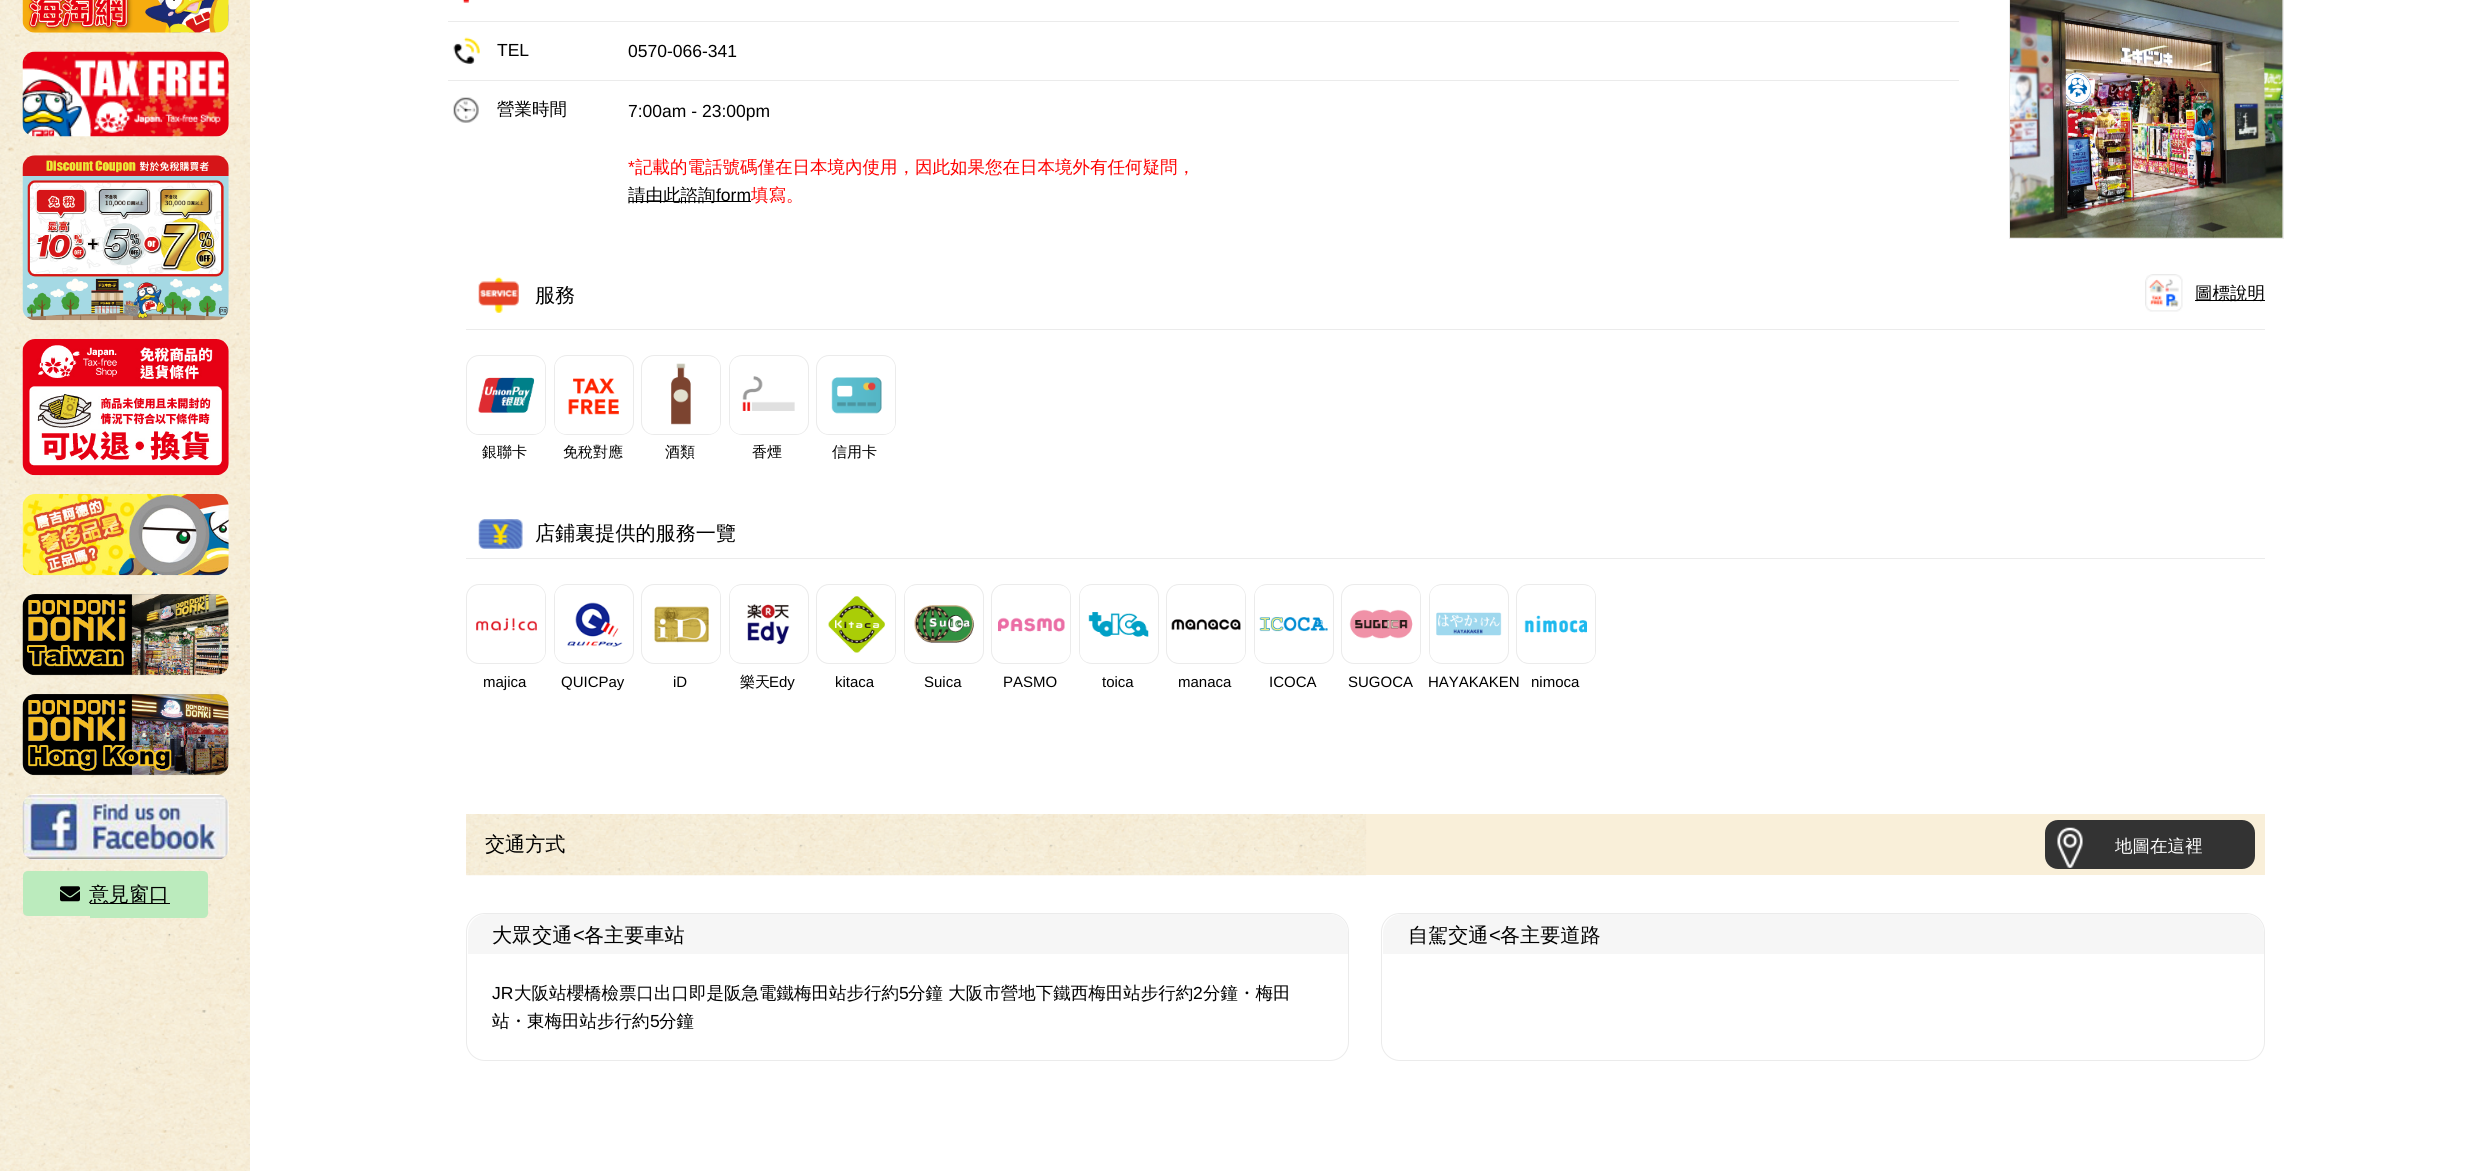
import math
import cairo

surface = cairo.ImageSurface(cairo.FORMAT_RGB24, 2481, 1171)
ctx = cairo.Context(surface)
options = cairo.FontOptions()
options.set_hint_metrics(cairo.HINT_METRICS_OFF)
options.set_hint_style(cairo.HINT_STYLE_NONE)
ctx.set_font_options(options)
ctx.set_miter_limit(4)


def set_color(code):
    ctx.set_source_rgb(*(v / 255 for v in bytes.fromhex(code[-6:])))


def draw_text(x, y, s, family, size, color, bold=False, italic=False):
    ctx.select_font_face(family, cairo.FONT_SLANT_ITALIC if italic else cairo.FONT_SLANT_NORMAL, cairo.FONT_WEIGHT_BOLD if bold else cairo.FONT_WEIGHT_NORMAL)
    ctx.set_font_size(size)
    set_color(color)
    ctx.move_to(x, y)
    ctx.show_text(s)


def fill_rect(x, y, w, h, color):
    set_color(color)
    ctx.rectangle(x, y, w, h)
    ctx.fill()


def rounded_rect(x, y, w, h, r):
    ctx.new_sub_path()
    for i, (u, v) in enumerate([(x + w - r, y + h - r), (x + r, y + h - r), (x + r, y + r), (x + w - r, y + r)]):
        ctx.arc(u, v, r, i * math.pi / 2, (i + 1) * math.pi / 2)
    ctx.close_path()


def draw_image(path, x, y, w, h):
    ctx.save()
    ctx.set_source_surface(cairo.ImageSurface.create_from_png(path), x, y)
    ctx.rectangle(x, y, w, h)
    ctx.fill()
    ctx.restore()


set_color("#ffffff")
ctx.paint()
draw_image("assets/img1.png", 0, 0, 250, 1171)
draw_image("assets/img2.png", 22, 0, 207, 33)
draw_image("assets/img3.png", 22, 51, 207, 86)
draw_image("assets/img4.png", 22, 155, 207, 166)
draw_image("assets/img5.png", 22, 339, 207, 137)
draw_image("assets/img6.png", 22, 494, 207, 82)
draw_image("assets/img7.png", 22, 594, 207, 82)
draw_image("assets/img8.png", 22, 694, 207, 82)
draw_image("assets/img9.png", 22, 794, 207, 66)
set_color("#bbebbd")
ctx.new_path()
ctx.move_to(28, 871)
ctx.line_to(90, 871)
ctx.line_to(90, 916)
ctx.line_to(28, 916)
ctx.curve_to(25, 916, 23, 914, 23, 911)
ctx.line_to(23, 876)
ctx.curve_to(23, 873, 25, 871, 28, 871)
ctx.close_path()
ctx.fill()
ctx.new_path()
ctx.move_to(90, 871)
ctx.line_to(203, 871)
ctx.curve_to(206, 871, 208, 873, 208, 876)
ctx.line_to(208, 913)
ctx.curve_to(208, 916, 206, 918, 203, 918)
ctx.line_to(90, 918)
ctx.close_path()
ctx.fill()
draw_image("assets/img10.png", 60, 886, 20, 16)
fill_rect(90, 903, 80, 1, "#000000")
draw_text(89, 901, "意見窗口", "WenQuanYi Zen Hei Medium", 20, "#000000")
ctx.rectangle(2009.5, -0.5, 274, 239)
set_color("#ebebeb")
ctx.set_line_width(1)
ctx.stroke()
draw_image("assets/img11.png", 2010, 0, 273, 238)
draw_image("assets/img12.png", 462, 0, 8, 3)
draw_image("assets/img13.png", 453, 37, 27, 27)
draw_text(497, 56, "TEL", "Liberation Sans", 17.5, "#000000")
fill_rect(448, 21, 1511, 1, "#ebebeb")
draw_text(628, 57, "0570-066-341", "Liberation Sans", 17.5, "#000000")
draw_image("assets/img14.png", 453, 97, 26, 26)
draw_text(497, 115, "營業時間", "WenQuanYi Zen Hei Medium", 17.5, "#000000")
fill_rect(448, 80, 1511, 1, "#ebebeb")
draw_text(628, 117, "7:00am - 23:00pm", "Liberation Sans", 17.5, "#000000")
draw_text(628, 173, "*", "Liberation Sans", 17.5, "#ff0000")
draw_text(635, 173, "記載的電話號碼僅在日本境內使用，因此如果您在日本境外有任何疑問，", "WenQuanYi Zen Hei Medium", 17.5, "#ff0000")
fill_rect(629, 201, 122, 1, "#000000")
draw_text(628, 201, "請由此諮詢", "WenQuanYi Zen Hei Medium", 17.5, "#000000")
draw_text(716, 201, "form", "Liberation Sans", 17.5, "#000000")
draw_text(751, 201, "填寫。", "WenQuanYi Zen Hei Medium", 17.5, "#ff0000")
draw_image("assets/img15.png", 478, 277, 41, 36)
draw_text(535, 302, "服務", "WenQuanYi Zen Hei Medium", 20.1, "#000000")
fill_rect(466, 329, 1799, 1, "#ebebeb")
draw_image("assets/img16.png", 2145, 274, 38, 38)
fill_rect(2195, 300, 70, 1, "#000000")
draw_text(2195, 299, "圖標說明", "WenQuanYi Zen Hei Medium", 17.5, "#000000")
rounded_rect(466.5, 355.5, 79, 79, 12.5)
set_color("#ebebeb")
ctx.stroke()
draw_image("assets/img17.png", 470, 357, 75, 77)
draw_text(482, 457, "銀聯卡", "WenQuanYi Zen Hei Medium", 15, "#000000")
rounded_rect(554.5, 355.5, 79, 79, 12.5)
set_color("#ebebeb")
ctx.stroke()
draw_image("assets/img18.png", 555, 357, 75, 77)
draw_text(563, 457, "免稅對應", "WenQuanYi Zen Hei Medium", 15, "#000000")
rounded_rect(641.5, 355.5, 79, 79, 12.5)
set_color("#ebebeb")
ctx.stroke()
draw_image("assets/img19.png", 645, 357, 75, 77)
draw_text(665, 457, "酒類", "WenQuanYi Zen Hei Medium", 15, "#000000")
rounded_rect(729.5, 355.5, 79, 79, 12.5)
set_color("#ebebeb")
ctx.stroke()
draw_image("assets/img20.png", 730, 357, 75, 77)
draw_text(752, 457, "香煙", "WenQuanYi Zen Hei Medium", 15, "#000000")
rounded_rect(816.5, 355.5, 79, 79, 12.5)
set_color("#ebebeb")
ctx.stroke()
draw_image("assets/img21.png", 820, 357, 75, 77)
draw_text(832, 457, "信用卡", "WenQuanYi Zen Hei Medium", 15, "#000000")
draw_image("assets/img22.png", 478, 519, 45, 30)
fill_rect(466, 558, 1799, 1, "#ebebeb")
draw_text(535, 540, "店鋪裏提供的服務一覽", "WenQuanYi Zen Hei Medium", 20.1, "#000000")
rounded_rect(466.5, 584.5, 79, 79, 12.5)
set_color("#ebebeb")
ctx.stroke()
draw_image("assets/img23.png", 476, 586, 69, 76)
draw_text(483, 687, "majica", "Liberation Sans", 15, "#000000")
rounded_rect(554.5, 584.5, 79, 79, 12.5)
set_color("#ebebeb")
ctx.stroke()
draw_image("assets/img24.png", 555, 586, 72, 76)
draw_text(561, 687, "QUICPay", "Liberation Sans", 15, "#000000")
rounded_rect(641.5, 584.5, 79, 79, 12.5)
set_color("#ebebeb")
ctx.stroke()
draw_image("assets/img25.png", 654, 586, 66, 76)
draw_text(673, 687, "iD", "Liberation Sans", 15, "#000000")
rounded_rect(729.5, 584.5, 79, 79, 12.5)
set_color("#ebebeb")
ctx.stroke()
draw_image("assets/img26.png", 730, 586, 72, 76)
draw_text(740, 687, "樂天", "WenQuanYi Zen Hei Medium", 15, "#000000")
draw_text(769, 687, "Edy", "Liberation Sans", 15, "#000000")
rounded_rect(816.5, 584.5, 79, 79, 12.5)
set_color("#ebebeb")
ctx.stroke()
draw_image("assets/img27.png", 828, 586, 67, 76)
draw_text(835, 687, "kitaca", "Liberation Sans", 15, "#000000")
rounded_rect(904.5, 584.5, 79, 79, 12.5)
set_color("#ebebeb")
ctx.stroke()
draw_image("assets/img28.png", 905, 586, 72, 76)
draw_text(924, 687, "Suica", "Liberation Sans", 15, "#000000")
rounded_rect(991.5, 584.5, 79, 79, 12.5)
set_color("#ebebeb")
ctx.stroke()
draw_image("assets/img29.png", 998, 586, 72, 76)
draw_text(1003, 687, "PASMO", "Liberation Sans", 15, "#000000")
rounded_rect(1079.5, 584.5, 79, 79, 12.5)
set_color("#ebebeb")
ctx.stroke()
draw_image("assets/img30.png", 1080, 586, 72, 76)
draw_text(1102, 687, "toica", "Liberation Sans", 15, "#000000")
rounded_rect(1166.5, 584.5, 79, 79, 12.5)
set_color("#ebebeb")
ctx.stroke()
draw_image("assets/img31.png", 1171, 586, 74, 76)
draw_text(1178, 687, "manaca", "Liberation Sans", 15, "#000000")
rounded_rect(1254.5, 584.5, 79, 79, 12.5)
set_color("#ebebeb")
ctx.stroke()
draw_image("assets/img32.png", 1255, 586, 73, 76)
draw_text(1269, 687, "ICOCA", "Liberation Sans", 15, "#000000")
rounded_rect(1341.5, 584.5, 79, 79, 12.5)
set_color("#ebebeb")
ctx.stroke()
draw_image("assets/img33.png", 1349, 586, 71, 76)
draw_text(1348, 687, "SUGOCA", "Liberation Sans", 15, "#000000")
rounded_rect(1429.5, 584.5, 79, 79, 12.5)
set_color("#ebebeb")
ctx.stroke()
draw_image("assets/img34.png", 1430, 586, 72, 76)
draw_text(1428, 687, "HAYAKAKEN", "Liberation Sans", 15, "#000000")
rounded_rect(1516.5, 584.5, 79, 79, 12.5)
set_color("#ebebeb")
ctx.stroke()
draw_image("assets/img35.png", 1522, 586, 73, 76)
draw_text(1531, 687, "nimoca", "Liberation Sans", 15, "#000000")
fill_rect(466, 814, 1799, 61, "#f9efd9")
draw_image("assets/img36.png", 466, 814, 901, 62)
draw_text(485, 851, "交通方式", "WenQuanYi Zen Hei Medium", 20.1, "#000000")
set_color("#333333")
rounded_rect(2045, 820, 210, 49, 13)
ctx.fill()
draw_image("assets/img37.png", 2057, 827, 26, 41)
draw_text(2115, 852, "地圖在這裡", "WenQuanYi Zen Hei Medium", 17.5, "#ffffff")
rounded_rect(466.5, 913.5, 882, 147, 18.5)
set_color("#ebebeb")
ctx.stroke()
set_color("#f6f6f6")
ctx.new_path()
ctx.move_to(487, 914)
ctx.line_to(1329, 914)
ctx.curve_to(1339.5, 914, 1348, 922.5, 1348, 933)
ctx.line_to(1348, 954)
ctx.line_to(468, 954)
ctx.line_to(468, 933)
ctx.curve_to(468, 922.5, 476.5, 914, 487, 914)
ctx.close_path()
ctx.fill()
draw_text(492, 942, "大眾交通", "WenQuanYi Zen Hei Medium", 20.1, "#000000")
draw_text(573, 942, "<", "Liberation Sans", 20.1, "#000000")
draw_text(584, 942, "各主要車站", "WenQuanYi Zen Hei Medium", 20.1, "#000000")
draw_text(492, 999, "JR", "Liberation Sans", 17.5, "#000000")
draw_text(514, 999, "大阪站櫻橋檢票口出口即是阪急電鐵梅田站步行約", "WenQuanYi Zen Hei Medium", 17.5, "#000000")
draw_text(899, 999, "5", "Liberation Sans", 17.5, "#000000")
draw_text(908, 999, "分鐘 大阪市營地下鐵西梅田站步行約", "WenQuanYi Zen Hei Medium", 17.5, "#000000")
draw_text(1193, 999, "2", "Liberation Sans", 17.5, "#000000")
draw_text(1203, 999, "分鐘・梅田", "WenQuanYi Zen Hei Medium", 17.5, "#000000")
draw_text(492, 1027, "站・東梅田站步行約", "WenQuanYi Zen Hei Medium", 17.5, "#000000")
draw_text(650, 1027, "5", "Liberation Sans", 17.5, "#000000")
draw_text(659, 1027, "分鐘", "WenQuanYi Zen Hei Medium", 17.5, "#000000")
rounded_rect(1381.5, 913.5, 883, 147, 18.5)
set_color("#ebebeb")
ctx.stroke()
set_color("#f6f6f6")
ctx.new_path()
ctx.move_to(1402, 914)
ctx.line_to(2245, 914)
ctx.curve_to(2255.5, 914, 2264, 922.5, 2264, 933)
ctx.line_to(2264, 954)
ctx.line_to(1383, 954)
ctx.line_to(1383, 933)
ctx.curve_to(1383, 922.5, 1391.5, 914, 1402, 914)
ctx.close_path()
ctx.fill()
draw_text(1408, 942, "自駕交通", "WenQuanYi Zen Hei Medium", 20.1, "#000000")
draw_text(1489, 942, "<", "Liberation Sans", 20.1, "#000000")
draw_text(1500, 942, "各主要道路", "WenQuanYi Zen Hei Medium", 20.1, "#000000")
surface.write_to_png("output.png")
